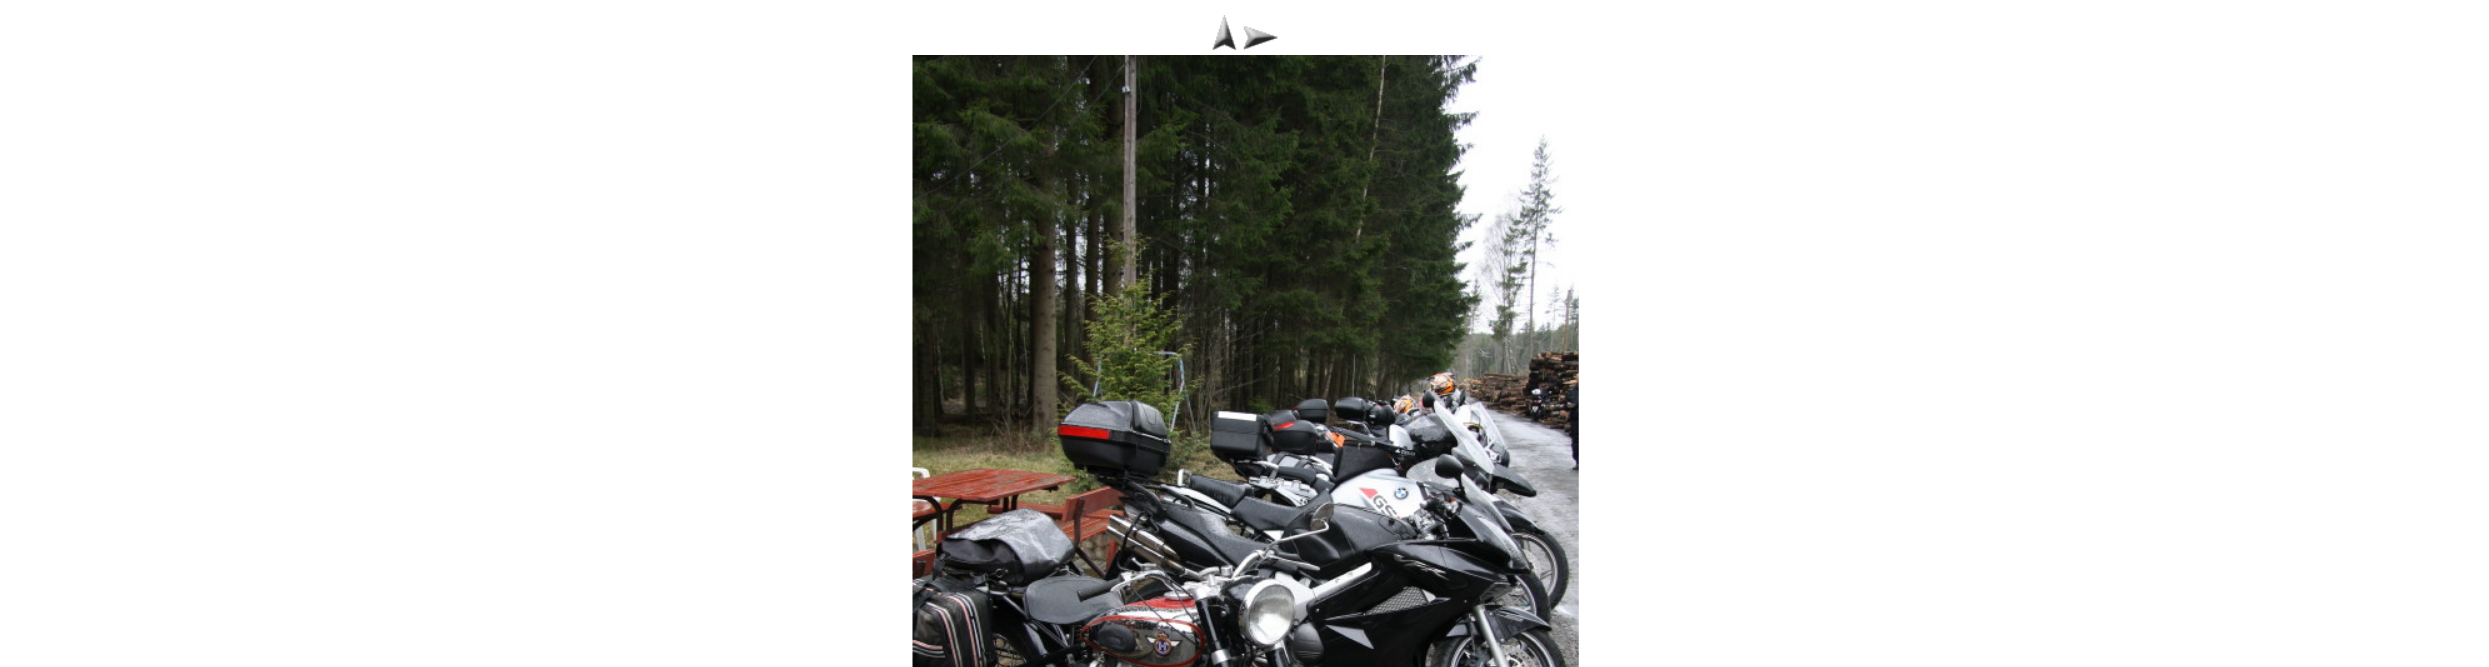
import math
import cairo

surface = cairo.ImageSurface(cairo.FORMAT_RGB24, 2489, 667)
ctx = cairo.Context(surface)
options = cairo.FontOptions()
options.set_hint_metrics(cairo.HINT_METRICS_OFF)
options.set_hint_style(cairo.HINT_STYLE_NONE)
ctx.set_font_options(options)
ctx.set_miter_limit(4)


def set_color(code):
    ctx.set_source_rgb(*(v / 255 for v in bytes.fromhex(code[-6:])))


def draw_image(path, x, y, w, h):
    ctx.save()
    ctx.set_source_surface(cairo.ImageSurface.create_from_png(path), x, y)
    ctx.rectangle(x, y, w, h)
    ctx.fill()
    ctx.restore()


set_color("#ffffff")
ctx.paint()
draw_image("assets/img1.png", 1212, 15, 25, 35)
draw_image("assets/img2.png", 1243, 26, 35, 24)
draw_image("assets/img3.png", 912, 55, 667, 612)
surface.write_to_png("output.png")
